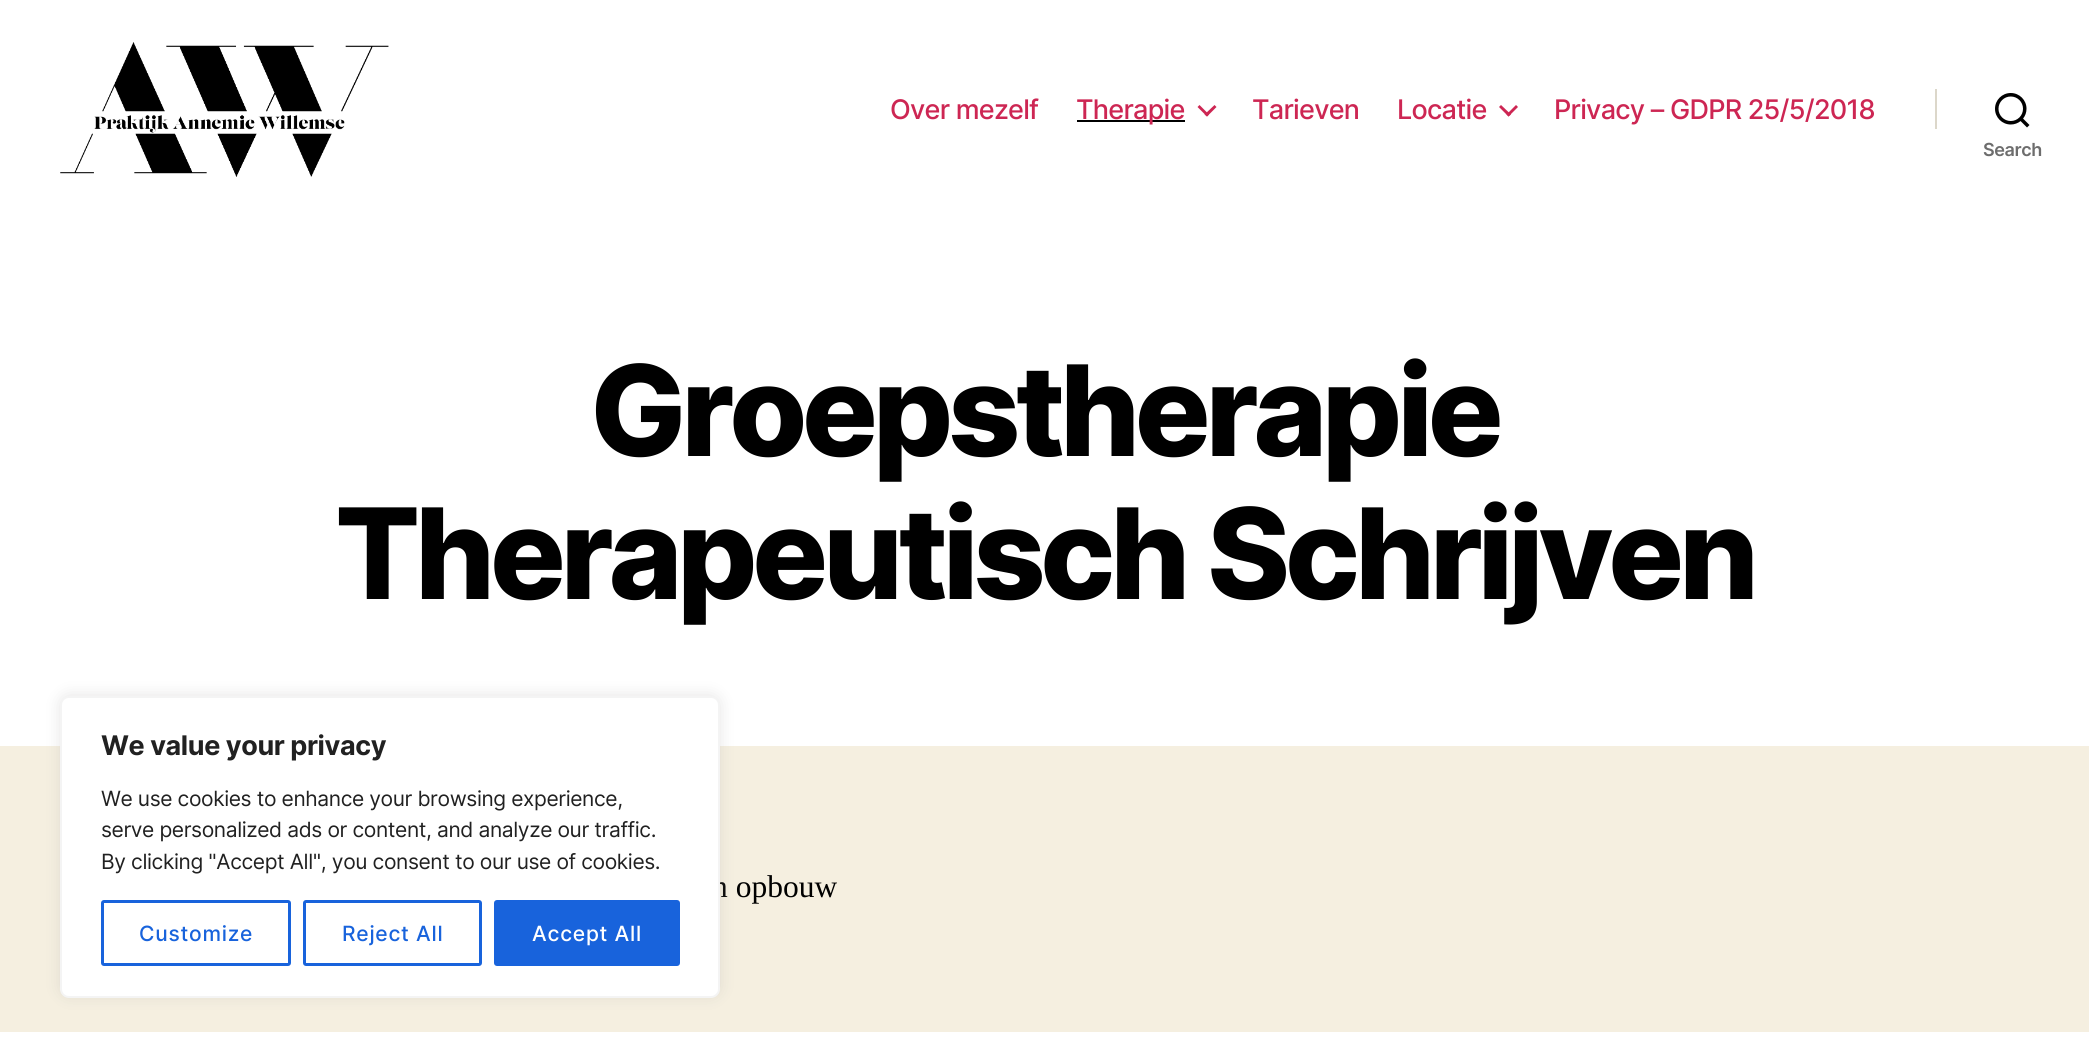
import math
import cairo

surface = cairo.ImageSurface(cairo.FORMAT_RGB24, 2089, 1057)
ctx = cairo.Context(surface)
options = cairo.FontOptions()
options.set_hint_metrics(cairo.HINT_METRICS_OFF)
options.set_hint_style(cairo.HINT_STYLE_NONE)
ctx.set_font_options(options)
ctx.set_miter_limit(4)


def set_color(code):
    ctx.set_source_rgb(*(v / 255 for v in bytes.fromhex(code[-6:])))


def draw_text(x, y, s, family, size, color, bold=False, italic=False):
    ctx.select_font_face(family, cairo.FONT_SLANT_ITALIC if italic else cairo.FONT_SLANT_NORMAL, cairo.FONT_WEIGHT_BOLD if bold else cairo.FONT_WEIGHT_NORMAL)
    ctx.set_font_size(size)
    set_color(color)
    ctx.move_to(x, y)
    ctx.show_text(s)


def draw_spaced(x, y, s, letter, word):
    ctx.move_to(x, y)
    for ch in s:
        ctx.show_text(ch)
        ctx.rel_move_to(letter + word * (ch == ' '), 0)


def fill_rect(x, y, w, h, color):
    set_color(color)
    ctx.rectangle(x, y, w, h)
    ctx.fill()


def rounded_rect(x, y, w, h, r):
    ctx.new_sub_path()
    for i, (u, v) in enumerate([(x + w - r, y + h - r), (x + r, y + h - r), (x + r, y + r), (x + w - r, y + r)]):
        ctx.arc(u, v, r, i * math.pi / 2, (i + 1) * math.pi / 2)
    ctx.close_path()


def draw_shadow(x, y, w, h, r, blur, alpha):
    ctx.push_group_with_content(cairo.CONTENT_ALPHA)
    ctx.set_operator(cairo.OPERATOR_SOURCE)
    for i in range(15, -16, -2):
        e = blur * i / 6
        if min(w, h) + 2 * e > 0:
            ctx.set_source_rgba(0, 0, 0, alpha * math.erfc((i - 1) / 8.5) / 2)
            rounded_rect(x - e, y - e, w + 2 * e, h + 2 * e, max(0, min(r + e + blur * .6, min(w, h) / 2 + e)))
            ctx.fill()
    ctx.mask(ctx.pop_group())


def draw_image(path, x, y, w, h):
    ctx.save()
    ctx.set_source_surface(cairo.ImageSurface.create_from_png(path), x, y)
    ctx.rectangle(x, y, w, h)
    ctx.fill()
    ctx.restore()


set_color("#f5efe0")
ctx.paint()
fill_rect(0, 0, 2089, 746, "#ffffff")
draw_image("assets/img1.png", 60, 42, 329, 135)
ctx.select_font_face("Inter Medium")
ctx.set_font_size(27)
set_color("#cd2653")
draw_spaced(890, 119, "Over mezelf", -0.75, 0)
fill_rect(1077, 120, 108, 2, "#000000")
set_color("#cd2653")
draw_spaced(1076, 119, "Therapie", -0.75, 0)
ctx.new_path()
ctx.move_to(1197.5, 107)
ctx.line_to(1199.5, 105)
ctx.line_to(1209, 114.5)
ctx.line_to(1207, 116.5)
ctx.close_path()
ctx.fill()
ctx.new_path()
ctx.move_to(1204.5, 114.5)
ctx.line_to(1214.5, 105)
ctx.line_to(1216.5, 107)
ctx.line_to(1207, 116.5)
ctx.close_path()
ctx.fill()
draw_spaced(1252, 119, "Tarieven", -0.75, 0)
draw_spaced(1397, 119, "Locatie", -0.75, 0)
ctx.new_path()
ctx.move_to(1499, 107)
ctx.line_to(1501, 105)
ctx.line_to(1511, 114.5)
ctx.line_to(1508.5, 116.5)
ctx.close_path()
ctx.fill()
ctx.new_path()
ctx.move_to(1506.5, 114.5)
ctx.line_to(1516, 105)
ctx.line_to(1518, 107)
ctx.line_to(1508.5, 116.5)
ctx.close_path()
ctx.fill()
draw_spaced(1554, 119, "Privacy – GDPR 25/5/2018", -0.75, 0)
fill_rect(1935, 89, 2, 40, "#dcd7ca")
draw_image("assets/img2.png", 1995, 93, 35, 35)
ctx.select_font_face("Inter SemiBold")
ctx.set_font_size(18)
set_color("#6d6d6d")
draw_spaced(1983, 156, "Search", -0.4, 0)
ctx.select_font_face("Inter ExtraBold")
ctx.set_font_size(126)
set_color("#000000")
draw_spaced(590, 456, "Groepstherapie", -5.25, 0)
draw_spaced(335, 599, "Therapeutisch Schrijven", -5.25, 0)
draw_text(712, 897, "n opbouw", "Liberation Serif", 31.5, "#000000")
set_color("#acabab")
draw_shadow(60, 695, 660, 301, 9, 7.5, 0.3)
set_color("#ffffff")
rounded_rect(61, 697, 658, 300, 8)
ctx.fill_preserve()
set_color("#f4f4f4")
ctx.stroke()
ctx.select_font_face("Inter", cairo.FONT_SLANT_NORMAL, cairo.FONT_WEIGHT_BOLD)
ctx.set_font_size(27)
set_color("#212121")
draw_spaced(101, 755, "We value your privacy", -0.4, 0)
ctx.select_font_face("Inter")
ctx.set_font_size(21)
draw_spaced(101, 806, "We use cookies to enhance your browsing experience,", -0.4, 0)
draw_spaced(101, 837, "serve personalized ads or content, and analyze our traffic.", -0.4, 0)
draw_spaced(101, 869, "By clicking \"Accept All\", you consent to our use of cookies.", -0.4, 0)
rounded_rect(102.5, 901.5, 187, 63, 1.5)
set_color("#1863dc")
ctx.set_line_width(3)
ctx.stroke()
ctx.select_font_face("Inter Medium")
draw_spaced(139, 941, "Customize", 0.75, 0)
rounded_rect(304.5, 901.5, 176, 63, 1.5)
ctx.stroke()
draw_spaced(342, 941, "Reject All", 0.75, 0)
rounded_rect(495.5, 901.5, 183, 63, 1.5)
ctx.fill_preserve()
ctx.stroke()
set_color("#ffffff")
draw_spaced(532, 941, "Accept All", 0.75, 0)
fill_rect(0, 1032, 2089, 25, "#ffffff")
surface.write_to_png("output.png")
